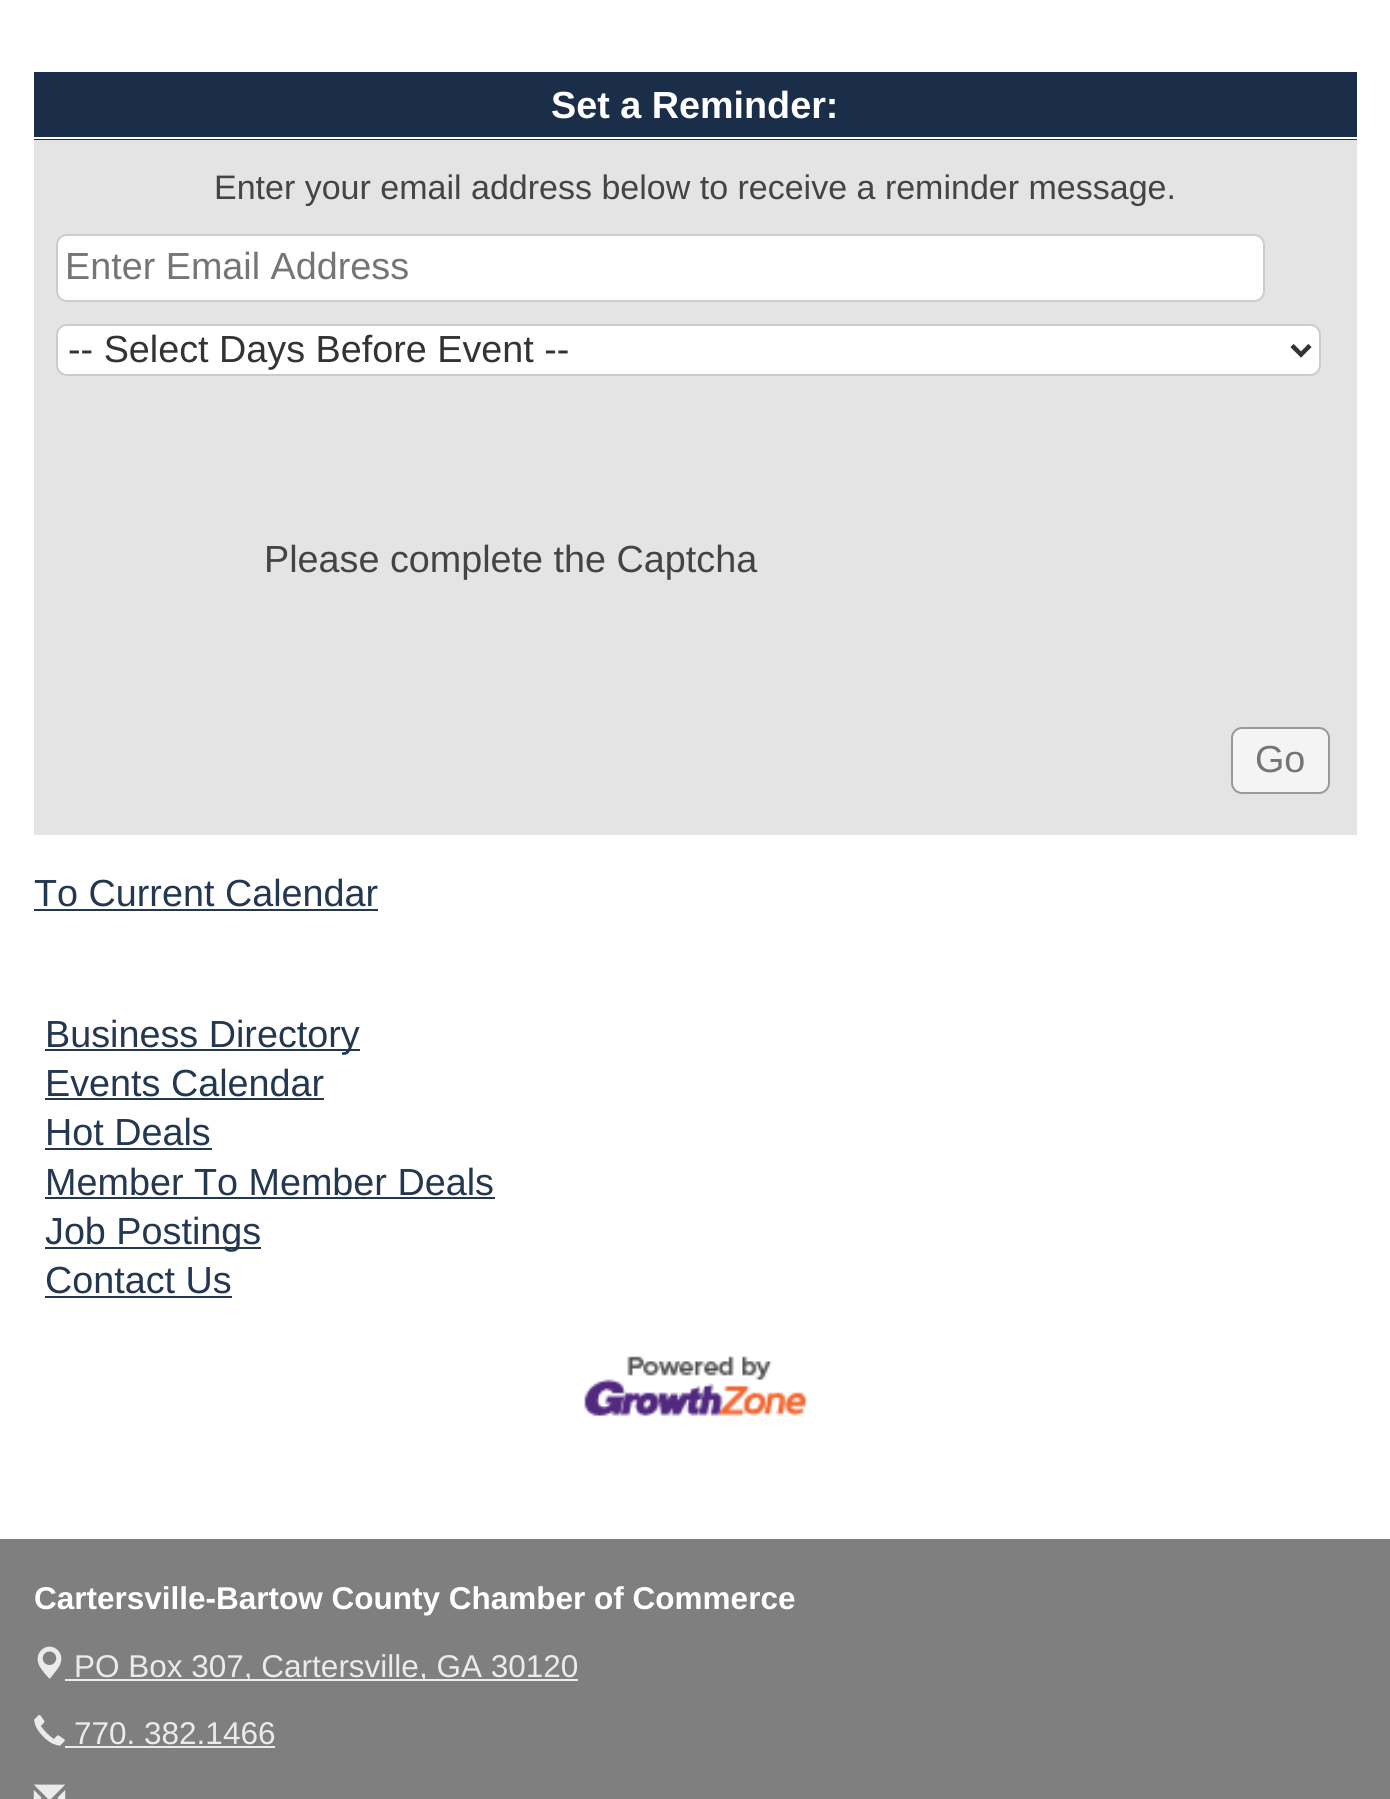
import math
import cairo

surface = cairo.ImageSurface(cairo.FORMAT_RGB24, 1390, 1799)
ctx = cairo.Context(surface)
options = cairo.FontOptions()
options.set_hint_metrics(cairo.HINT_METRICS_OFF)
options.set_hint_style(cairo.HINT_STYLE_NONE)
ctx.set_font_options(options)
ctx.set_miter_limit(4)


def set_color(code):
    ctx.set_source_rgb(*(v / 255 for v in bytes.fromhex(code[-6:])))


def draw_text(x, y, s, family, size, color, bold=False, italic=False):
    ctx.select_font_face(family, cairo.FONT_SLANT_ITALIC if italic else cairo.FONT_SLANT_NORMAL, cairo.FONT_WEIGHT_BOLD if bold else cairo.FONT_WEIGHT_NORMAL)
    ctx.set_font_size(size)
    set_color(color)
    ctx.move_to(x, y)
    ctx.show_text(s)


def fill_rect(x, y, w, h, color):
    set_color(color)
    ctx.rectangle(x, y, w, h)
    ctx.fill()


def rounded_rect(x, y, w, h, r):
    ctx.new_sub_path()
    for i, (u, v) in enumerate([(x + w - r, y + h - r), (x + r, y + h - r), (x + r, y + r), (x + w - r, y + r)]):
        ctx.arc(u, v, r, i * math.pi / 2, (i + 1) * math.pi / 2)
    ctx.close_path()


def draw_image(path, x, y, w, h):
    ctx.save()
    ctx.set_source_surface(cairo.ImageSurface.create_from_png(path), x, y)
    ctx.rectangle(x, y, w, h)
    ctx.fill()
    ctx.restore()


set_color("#ffffff")
ctx.paint()
fill_rect(34, 140, 1323, 695, "#e4e4e4")
fill_rect(34, 72, 1323, 68, "#1b2e49")
fill_rect(34, 137, 1323, 2, "#ffffff")
draw_text(551, 118, "Set a Reminder:", "Liberation Sans", 37.75, "#ffffff", bold=True)
draw_text(214, 199, "Enter your email address below to receive a reminder message.", "Liberation Sans", 34, "#444444")
set_color("#ffffff")
rounded_rect(57, 235, 1207, 66, 10)
ctx.fill_preserve()
set_color("#cccccc")
ctx.stroke()
draw_text(65, 279, "Enter Email Address", "Liberation Sans", 37.75, "#757575")
set_color("#ffffff")
rounded_rect(57, 325, 1263, 50, 10)
ctx.fill_preserve()
set_color("#cccccc")
ctx.stroke()
ctx.new_path()
ctx.move_to(1292, 345.5)
ctx.line_to(1301, 354.5)
ctx.line_to(1310, 345.5)
set_color("#333333")
ctx.set_line_width(4.5)
ctx.stroke()
draw_text(68, 362, "-- Select Days Before Event --", "Liberation Sans", 37.75, "#333333")
draw_text(264, 572, "Please complete the Captcha", "Liberation Sans", 37.75, "#444444")
set_color("#f4f4f4")
rounded_rect(1232, 728, 97, 65, 10)
ctx.fill_preserve()
set_color("#999999")
ctx.set_line_width(2)
ctx.stroke()
draw_text(1255, 772, "Go", "Liberation Sans", 37.75, "#757575")
draw_text(34, 906, "To Current Calendar", "Liberation Sans", 37.75, "#243751")
fill_rect(34, 909, 344, 2, "#243751")
fill_rect(45, 1049, 315, 2, "#243751")
draw_text(45, 1047, "Business Directory", "Liberation Sans", 37.75, "#243751")
draw_text(45, 1096, "Events Calendar", "Liberation Sans", 37.75, "#243751")
fill_rect(45, 1098, 279, 2, "#243751")
draw_text(45, 1145, "Hot Deals", "Liberation Sans", 37.75, "#243751")
fill_rect(45, 1148, 167, 2, "#243751")
draw_text(45, 1195, "Member To Member Deals", "Liberation Sans", 37.75, "#243751")
fill_rect(45, 1197, 450, 2, "#243751")
fill_rect(45, 1247, 216, 2, "#243751")
draw_text(45, 1244, "Job Postings", "Liberation Sans", 37.75, "#243751")
draw_text(45, 1293, "Contact Us", "Liberation Sans", 37.75, "#243751")
fill_rect(45, 1296, 187, 2, "#243751")
draw_image("assets/img1.png", 584, 1356, 223, 61)
fill_rect(0, 1539, 1390, 260, "#7f7f7f")
draw_text(34, 1609, "Cartersville-Bartow County Chamber of Commerce", "Liberation Sans", 31.5, "#ffffff", bold=True)
draw_image("assets/img2.png", 37, 1646, 25, 33)
fill_rect(65, 1679, 513, 2, "#ebebeb")
draw_text(74, 1677, "PO Box 307, Cartersville, GA 30120", "Liberation Sans", 31.5, "#ebebeb")
draw_image("assets/img3.png", 34, 1715, 31, 31)
draw_text(74, 1744, "770. 382.1466", "Liberation Sans", 31.5, "#ebebeb")
fill_rect(65, 1746, 210, 2, "#ebebeb")
draw_image("assets/img4.png", 33, 1784, 33, 15)
surface.write_to_png("output.png")
